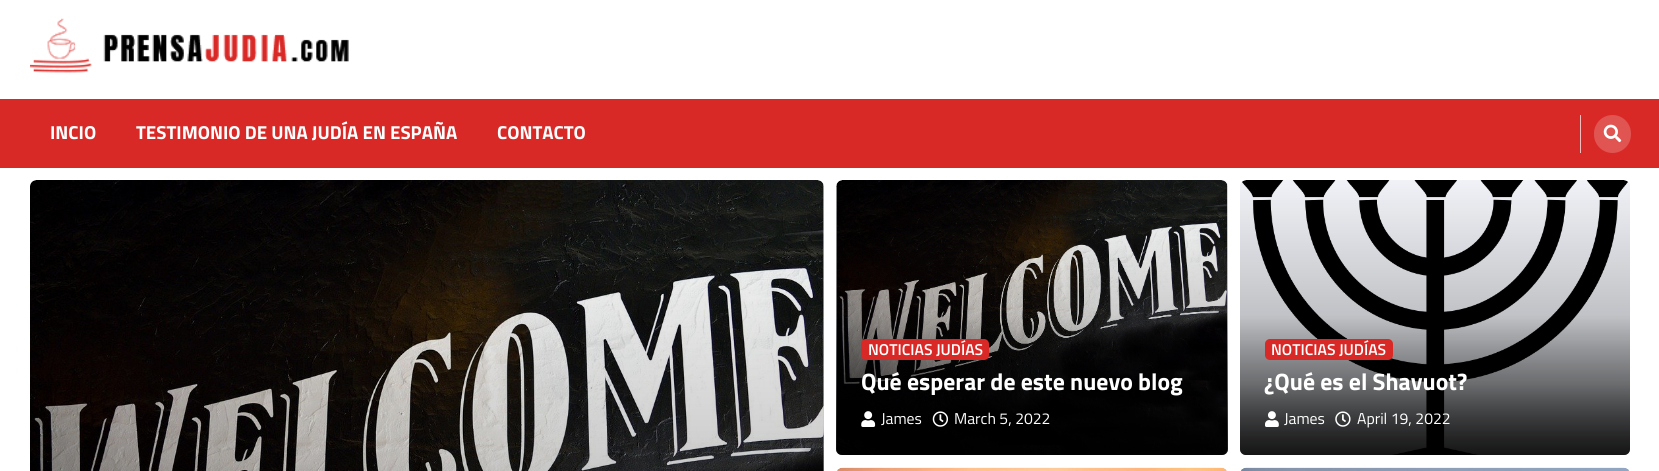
import math
import cairo

surface = cairo.ImageSurface(cairo.FORMAT_RGB24, 1659, 471)
ctx = cairo.Context(surface)
options = cairo.FontOptions()
options.set_hint_metrics(cairo.HINT_METRICS_OFF)
options.set_hint_style(cairo.HINT_STYLE_NONE)
ctx.set_font_options(options)
ctx.set_miter_limit(4)


def set_color(code):
    ctx.set_source_rgb(*(v / 255 for v in bytes.fromhex(code[-6:])))


def draw_text(x, y, s, family, size, color, bold=False, italic=False):
    ctx.select_font_face(family, cairo.FONT_SLANT_ITALIC if italic else cairo.FONT_SLANT_NORMAL, cairo.FONT_WEIGHT_BOLD if bold else cairo.FONT_WEIGHT_NORMAL)
    ctx.set_font_size(size)
    set_color(color)
    ctx.move_to(x, y)
    ctx.show_text(s)


def fill_rect(x, y, w, h, color):
    set_color(color)
    ctx.rectangle(x, y, w, h)
    ctx.fill()


def rounded_rect(x, y, w, h, r):
    ctx.new_sub_path()
    for i, (u, v) in enumerate([(x + w - r, y + h - r), (x + r, y + h - r), (x + r, y + r), (x + w - r, y + r)]):
        ctx.arc(u, v, r, i * math.pi / 2, (i + 1) * math.pi / 2)
    ctx.close_path()


def draw_image(path, x, y, w, h):
    ctx.save()
    ctx.set_source_surface(cairo.ImageSurface.create_from_png(path), x, y)
    ctx.rectangle(x, y, w, h)
    ctx.fill()
    ctx.restore()


set_color("#ffffff")
ctx.paint()
draw_image("assets/img1.png", 30, 18, 319, 55)
fill_rect(0, 99, 1659, 69, "#d82926")
draw_text(50, 139, "INCIO", "Titillium Web", 18.75, "#ffffff", bold=True)
draw_text(136, 139, "TESTIMONIO DE UNA JUDÍA EN ESPAÑA", "Titillium Web", 18.75, "#ffffff", bold=True)
draw_text(497, 139, "CONTACTO", "Titillium Web", 18.75, "#ffffff", bold=True)
fill_rect(1580, 115, 1, 38, "#f3bfbe")
set_color("#e05451")
rounded_rect(1594, 115, 37, 38, 18.5)
ctx.fill()
draw_image("assets/img2.png", 1603, 124, 19, 19)
set_color("#f0f2f7")
rounded_rect(30, 180, 794, 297, 6)
ctx.fill()
draw_image("assets/img3.png", 30, 180, 794, 291)
gradient = cairo.LinearGradient(427, 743, 427, 180)
gradient.add_color_stop_rgba(0, 0, 0, 0, 0.7)
gradient.add_color_stop_rgba(0.5, 0, 0, 0, 0.2)
gradient.add_color_stop_rgba(1, 0, 0, 0, 0)
ctx.set_source(gradient)
ctx.rectangle(30, 210, 794, 261)
ctx.fill()
set_color("#f0f2f7")
rounded_rect(836, 180, 392, 275, 6)
ctx.fill()
draw_image("assets/img4.png", 836, 180, 392, 275)
gradient = cairo.LinearGradient(1032, 455, 1032, 180)
gradient.add_color_stop_rgba(0, 0, 0, 0, 0.7)
gradient.add_color_stop_rgba(0.5, 0, 0, 0, 0.2)
gradient.add_color_stop_rgba(1, 0, 0, 0, 0)
ctx.set_source(gradient)
rounded_rect(836, 180, 392, 275, 6)
ctx.fill()
gradient = cairo.LinearGradient(1032, 455, 1032, 314)
gradient.add_color_stop_rgba(0, 0, 0, 0, 0.7)
gradient.add_color_stop_rgba(0.5, 0, 0, 0, 0.2)
gradient.add_color_stop_rgba(1, 0, 0, 0, 0)
ctx.set_source(gradient)
ctx.new_path()
ctx.move_to(836, 314)
ctx.line_to(1228, 314)
ctx.line_to(1228, 449)
ctx.curve_to(1228, 452.5, 1225.5, 455, 1222, 455)
ctx.line_to(842, 455)
ctx.curve_to(838.5, 455, 836, 452.5, 836, 449)
ctx.close_path()
ctx.fill()
set_color("#d82926")
rounded_rect(861, 339, 128, 21, 5)
ctx.fill()
draw_text(868, 355, "NOTICIAS JUDÍAS", "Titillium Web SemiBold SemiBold", 15.75, "#ffffff")
draw_text(861, 390, "Qué esperar de este nuevo blog", "Titillium Web", 23.75, "#ffffff", bold=True)
draw_image("assets/img5.png", 861, 411, 15, 16)
draw_text(881, 424, "James", "Titillium Web", 15.75, "#ffffff")
draw_image("assets/img6.png", 932, 411, 16, 16)
draw_text(954, 424, "March 5, 2022", "Titillium Web", 15.75, "#ffffff")
set_color("#f0f2f7")
rounded_rect(1240, 180, 390, 275, 6)
ctx.fill()
draw_image("assets/img7.png", 1242, 180, 386, 275)
gradient = cairo.LinearGradient(1435, 455, 1435, 180)
gradient.add_color_stop_rgba(0, 0, 0, 0, 0.7)
gradient.add_color_stop_rgba(0.5, 0, 0, 0, 0.2)
gradient.add_color_stop_rgba(1, 0, 0, 0, 0)
ctx.set_source(gradient)
rounded_rect(1240, 180, 390, 275, 6)
ctx.fill()
gradient = cairo.LinearGradient(1435, 455, 1435, 314)
gradient.add_color_stop_rgba(0, 0, 0, 0, 0.7)
gradient.add_color_stop_rgba(0.5, 0, 0, 0, 0.2)
gradient.add_color_stop_rgba(1, 0, 0, 0, 0)
ctx.set_source(gradient)
ctx.new_path()
ctx.move_to(1240, 314)
ctx.line_to(1630, 314)
ctx.line_to(1630, 449)
ctx.curve_to(1630, 452.5, 1627.5, 455, 1624, 455)
ctx.line_to(1246, 455)
ctx.curve_to(1242.5, 455, 1240, 452.5, 1240, 449)
ctx.close_path()
ctx.fill()
set_color("#d82926")
rounded_rect(1265, 339, 128, 21, 5)
ctx.fill()
draw_text(1271, 355, "NOTICIAS JUDÍAS", "Titillium Web SemiBold SemiBold", 15.75, "#ffffff")
draw_text(1264, 390, "¿Qué es el Shavuot?", "Titillium Web", 23.75, "#ffffff", bold=True)
draw_image("assets/img8.png", 1265, 411, 14, 16)
draw_text(1284, 424, "James", "Titillium Web", 15.75, "#ffffff")
draw_image("assets/img9.png", 1335, 411, 16, 16)
draw_text(1357, 424, "April 19, 2022", "Titillium Web", 15.75, "#ffffff")
set_color("#f0f2f7")
rounded_rect(836, 468, 392, 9, 6)
ctx.fill()
draw_image("assets/img10.png", 837, 467, 390, 4)
draw_image("assets/img11.png", 1241, 467, 388, 4)
surface.write_to_png("output.png")
